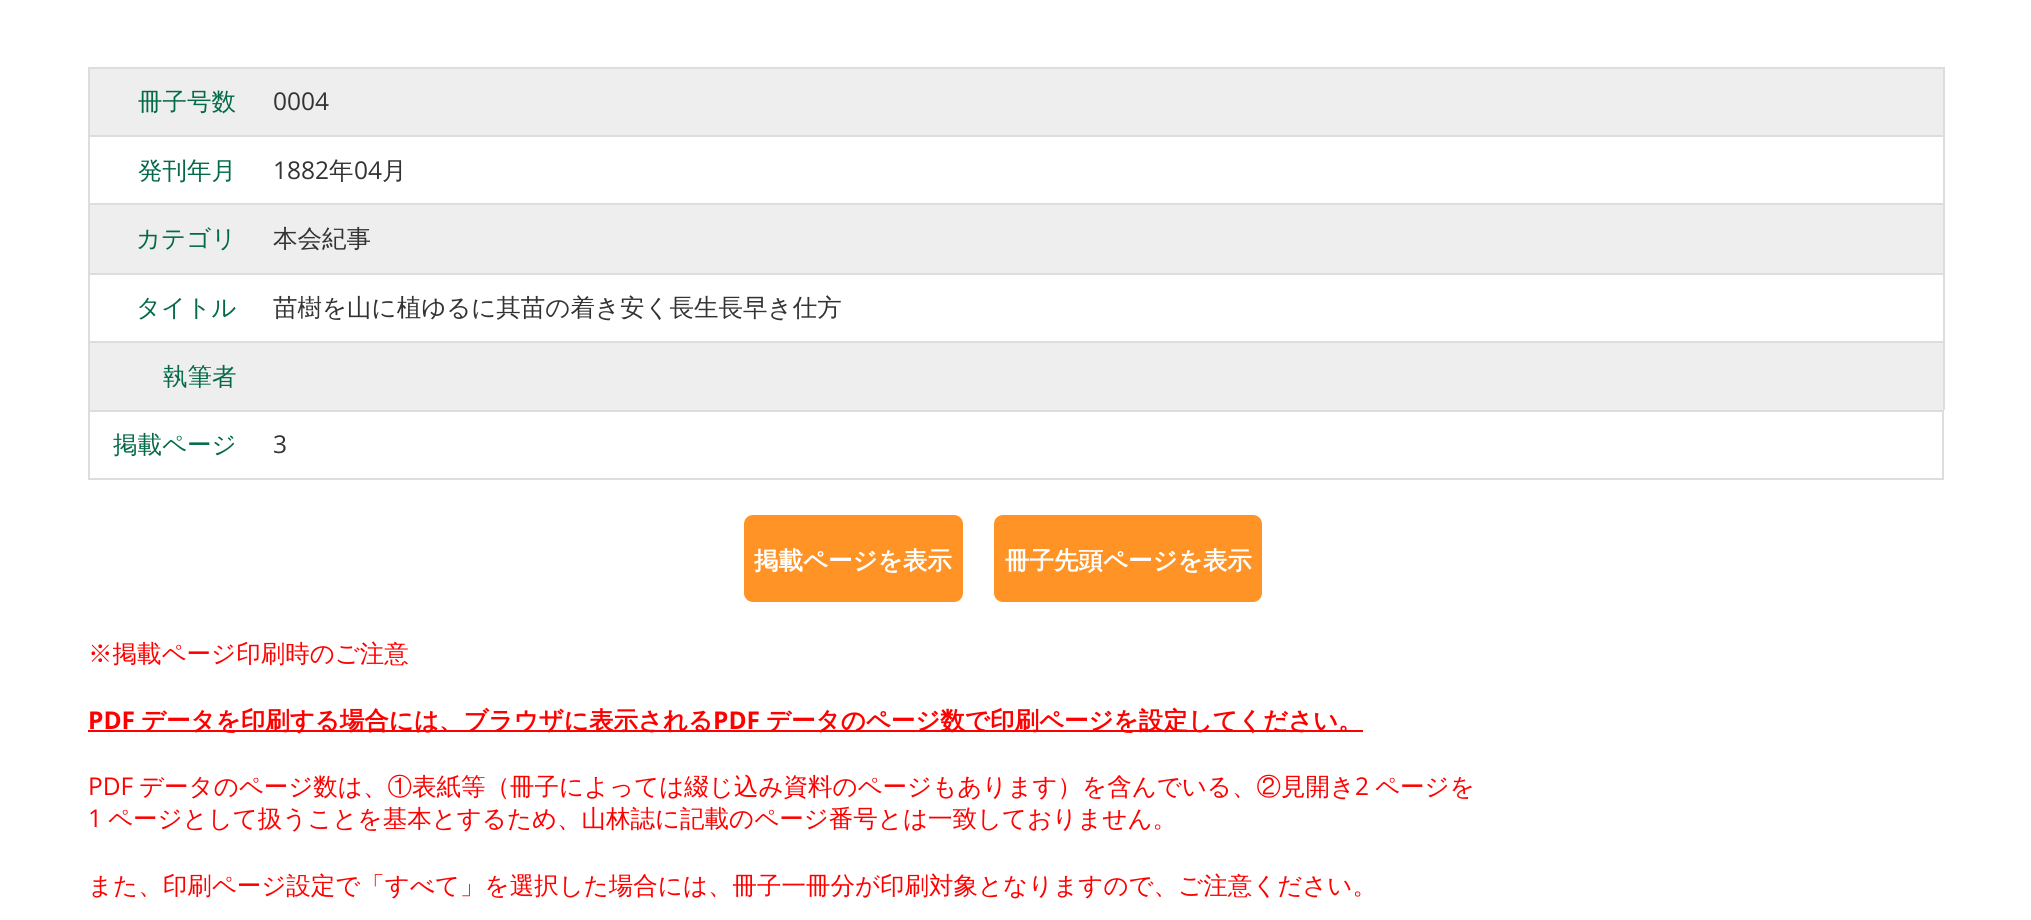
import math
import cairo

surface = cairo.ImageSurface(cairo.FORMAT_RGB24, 2031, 920)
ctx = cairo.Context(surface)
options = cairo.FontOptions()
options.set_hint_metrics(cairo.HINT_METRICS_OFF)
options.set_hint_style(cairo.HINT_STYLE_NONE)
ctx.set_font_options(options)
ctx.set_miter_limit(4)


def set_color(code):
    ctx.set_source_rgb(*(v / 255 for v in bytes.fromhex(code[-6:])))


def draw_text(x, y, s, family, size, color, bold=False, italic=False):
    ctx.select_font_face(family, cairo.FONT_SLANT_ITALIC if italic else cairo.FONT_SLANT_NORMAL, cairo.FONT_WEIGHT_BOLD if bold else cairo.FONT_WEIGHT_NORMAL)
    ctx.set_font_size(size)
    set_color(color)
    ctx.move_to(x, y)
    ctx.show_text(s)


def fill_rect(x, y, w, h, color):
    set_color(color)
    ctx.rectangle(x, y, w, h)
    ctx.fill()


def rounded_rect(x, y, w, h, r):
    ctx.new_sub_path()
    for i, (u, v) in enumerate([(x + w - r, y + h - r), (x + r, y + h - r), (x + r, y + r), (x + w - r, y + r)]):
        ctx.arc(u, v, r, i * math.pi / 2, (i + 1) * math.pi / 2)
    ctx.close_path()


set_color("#ffffff")
ctx.paint()
fill_rect(90, 69, 1853, 66, "#eeeeee")
fill_rect(88, 67, 1856, 2, "#dddddd")
fill_rect(1943, 67, 2, 68, "#dddddd")
fill_rect(88, 67, 2, 68, "#dddddd")
draw_text(138, 110, "冊子号数", "WenQuanYi Zen Hei Medium", 24.5, "#036a49")
draw_text(273, 110, "0004", "Open Sans", 24.5, "#333333")
fill_rect(88, 135, 1856, 2, "#dddddd")
fill_rect(1943, 135, 2, 68, "#dddddd")
fill_rect(88, 135, 2, 68, "#dddddd")
draw_text(138, 179, "発刊年月", "WenQuanYi Zen Hei Medium", 24.5, "#036a49")
draw_text(273, 179, "1882", "Open Sans", 24.5, "#333333")
draw_text(329, 179, "年", "WenQuanYi Zen Hei Medium", 24.5, "#333333")
draw_text(354, 179, "04", "Open Sans", 24.5, "#333333")
draw_text(382, 179, "月", "WenQuanYi Zen Hei Medium", 24.5, "#333333")
fill_rect(90, 205, 1853, 68, "#eeeeee")
fill_rect(88, 203, 1856, 2, "#dddddd")
fill_rect(1943, 203, 2, 70, "#dddddd")
fill_rect(88, 203, 2, 70, "#dddddd")
draw_text(136, 247, "カテゴリ", "WenQuanYi Zen Hei Medium", 24.5, "#036a49")
draw_text(273, 247, "本会紀事", "WenQuanYi Zen Hei Medium", 24.5, "#333333")
fill_rect(88, 273, 1856, 2, "#dddddd")
fill_rect(1943, 273, 2, 68, "#dddddd")
fill_rect(88, 273, 2, 68, "#dddddd")
draw_text(136, 316, "タイトル", "WenQuanYi Zen Hei Medium", 24.5, "#036a49")
draw_text(273, 316, "苗樹を山に植ゆるに其苗の着き安く長生長早き仕方", "WenQuanYi Zen Hei Medium", 24.5, "#333333")
fill_rect(90, 343, 1853, 67, "#eeeeee")
fill_rect(88, 341, 1856, 2, "#dddddd")
fill_rect(1943, 341, 2, 69, "#dddddd")
fill_rect(88, 341, 2, 69, "#dddddd")
draw_text(163, 385, "執筆者", "WenQuanYi Zen Hei Medium", 24.5, "#036a49")
ctx.rectangle(89, 411, 1854, 68)
set_color("#dddddd")
ctx.stroke()
draw_text(113, 453, "掲載ページ", "WenQuanYi Zen Hei Medium", 24.5, "#036a49")
draw_text(273, 453, "3", "Open Sans", 24.5, "#333333")
set_color("#ff9326")
rounded_rect(744, 515, 219, 87, 9)
ctx.fill()
draw_text(754, 569, "掲載ページを表示", "WenQuanYi Zen Hei", 24.5, "#ffffff", bold=True)
set_color("#ff9326")
rounded_rect(994, 515, 268, 87, 9)
ctx.fill()
draw_text(1005, 569, "冊子先頭ページを表示", "WenQuanYi Zen Hei", 24.5, "#ffffff", bold=True)
draw_text(88, 662, "※掲載ページ印刷時のご注意", "WenQuanYi Zen Hei Medium", 24.5, "#ff0000")
draw_text(88, 729, "PDF", "Open Sans", 24.5, "#ff0000", bold=True)
fill_rect(88, 730, 1275, 2, "#ff0000")
draw_text(141, 729, "データを印刷する場合には、ブラウザに表示される", "WenQuanYi Zen Hei", 24.5, "#ff0000", bold=True)
draw_text(713, 729, "PDF", "Open Sans", 24.5, "#ff0000", bold=True)
draw_text(766, 729, "データのページ数で印刷ページを設定してください。", "WenQuanYi Zen Hei", 24.5, "#ff0000", bold=True)
draw_text(88, 795, "PDF", "Open Sans", 24.5, "#ff0000")
draw_text(139, 795, "データのページ数は、①表紙等（冊子によっては綴じ込み資料のページもあります）を含んでいる、②見開き", "WenQuanYi Zen Hei Medium", 24.5, "#ff0000")
draw_text(1355, 795, "2", "Open Sans", 24.5, "#ff0000")
draw_text(1375, 795, "ページを", "WenQuanYi Zen Hei Medium", 24.5, "#ff0000")
draw_text(88, 827, "1", "Open Sans", 24.5, "#ff0000")
draw_text(108, 827, "ページとして扱うことを基本とするため、山林誌に記載のページ番号とは一致しておりません。", "WenQuanYi Zen Hei Medium", 24.5, "#ff0000")
draw_text(88, 894, "また、印刷ページ設定で「すべて」を選択した場合には、冊子一冊分が印刷対象となりますので、ご注意ください。", "WenQuanYi Zen Hei Medium", 24.5, "#ff0000")
surface.write_to_png("output.png")
